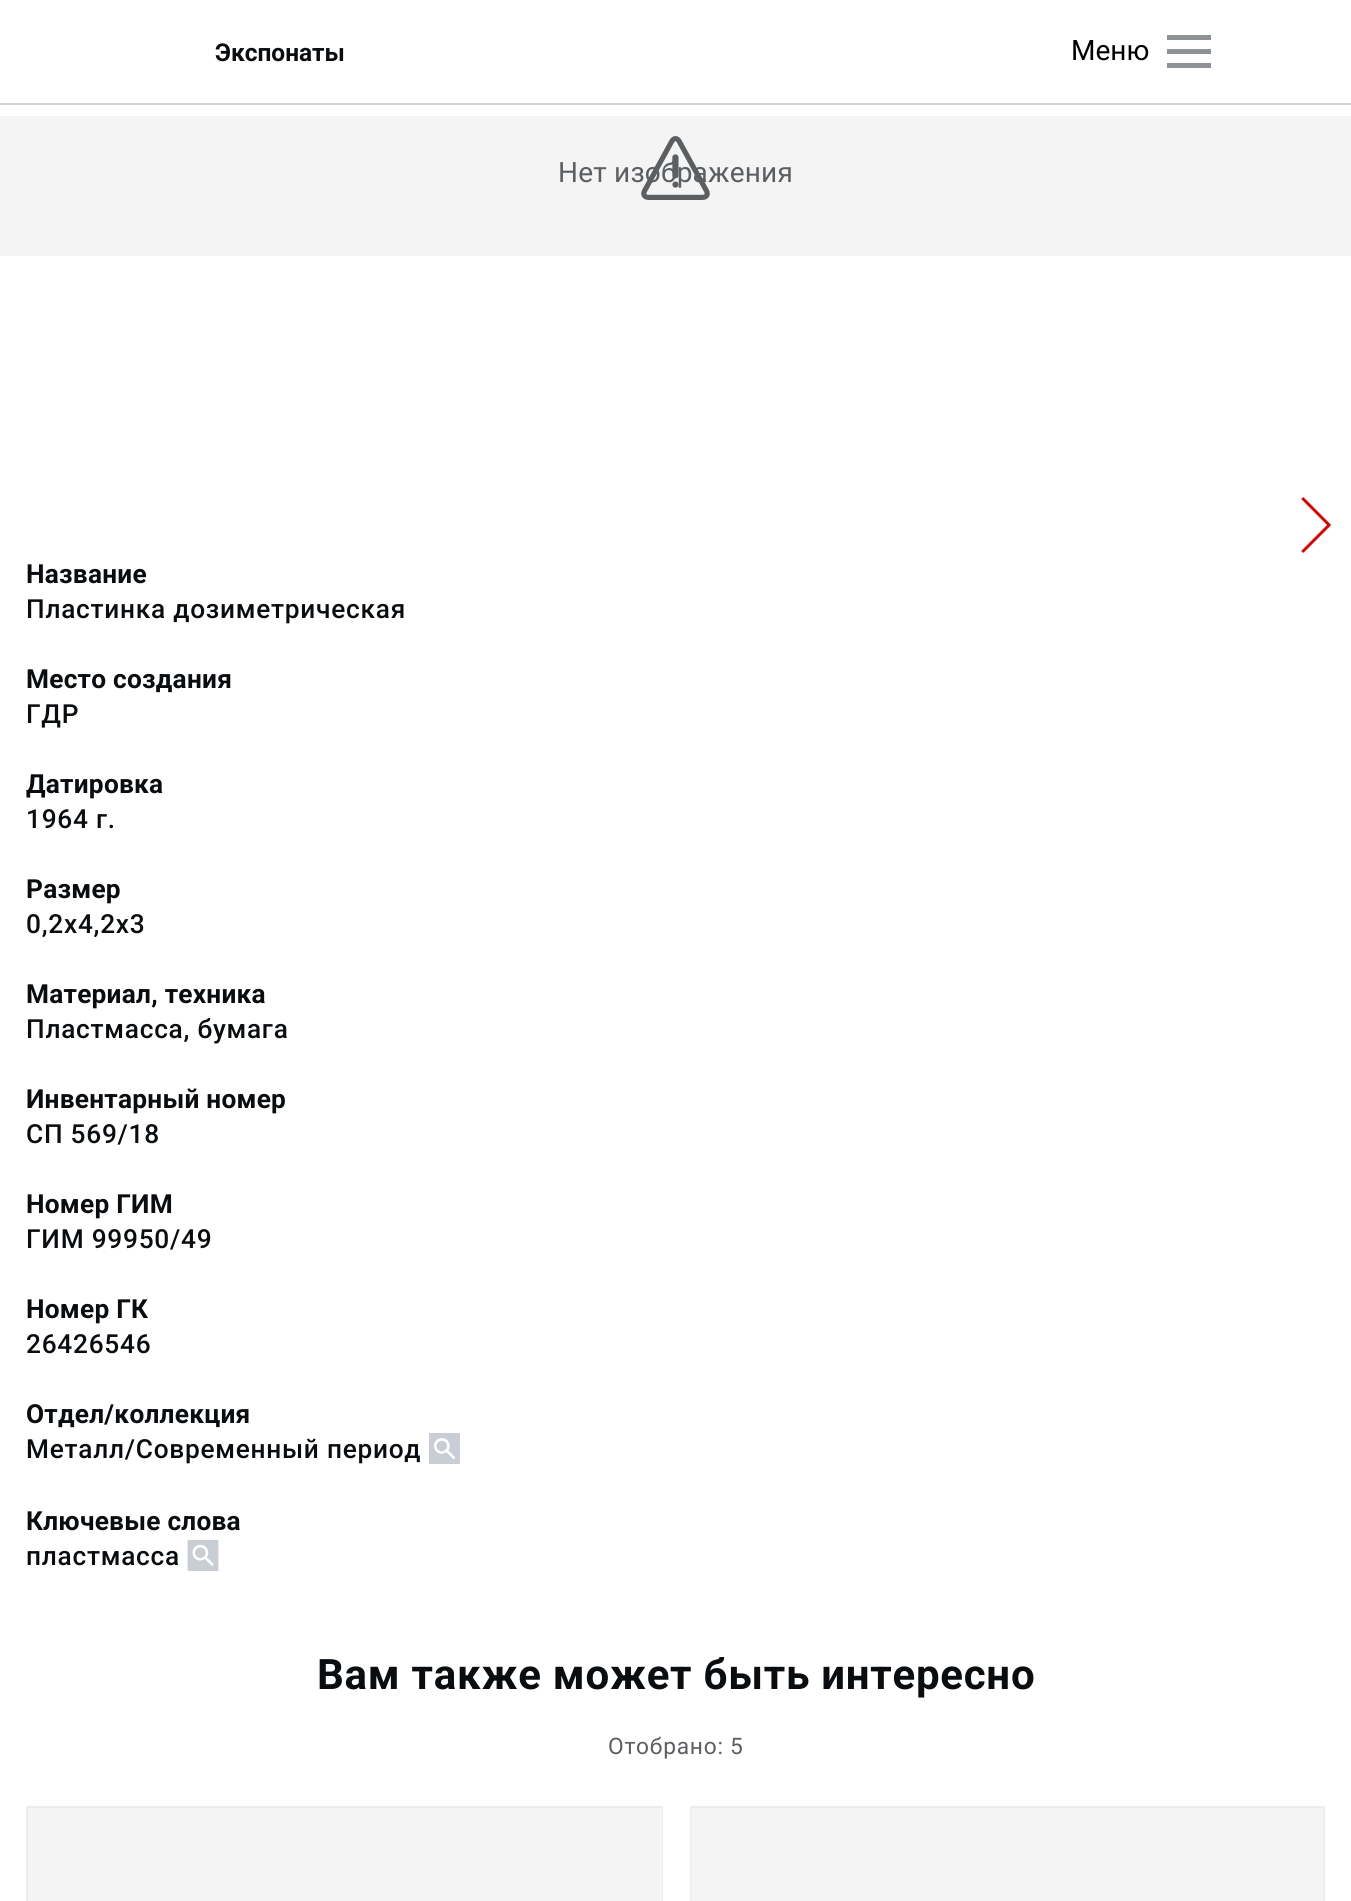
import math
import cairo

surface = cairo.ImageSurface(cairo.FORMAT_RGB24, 1351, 1901)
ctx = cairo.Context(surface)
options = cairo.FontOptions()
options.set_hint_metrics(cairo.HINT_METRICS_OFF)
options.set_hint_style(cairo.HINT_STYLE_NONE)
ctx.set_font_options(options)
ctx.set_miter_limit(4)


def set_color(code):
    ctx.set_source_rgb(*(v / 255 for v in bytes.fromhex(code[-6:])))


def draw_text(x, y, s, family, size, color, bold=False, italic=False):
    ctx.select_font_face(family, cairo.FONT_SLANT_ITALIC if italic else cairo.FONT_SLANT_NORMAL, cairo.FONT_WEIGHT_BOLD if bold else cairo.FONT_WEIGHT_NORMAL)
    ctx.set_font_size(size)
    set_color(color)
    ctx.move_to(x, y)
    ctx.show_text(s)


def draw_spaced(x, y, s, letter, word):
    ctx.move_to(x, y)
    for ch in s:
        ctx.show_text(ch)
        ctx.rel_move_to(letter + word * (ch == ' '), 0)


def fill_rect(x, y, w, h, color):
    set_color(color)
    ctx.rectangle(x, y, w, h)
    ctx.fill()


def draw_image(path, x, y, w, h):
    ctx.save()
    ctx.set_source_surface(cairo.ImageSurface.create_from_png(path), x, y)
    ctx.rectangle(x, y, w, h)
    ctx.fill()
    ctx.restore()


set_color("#ffffff")
ctx.paint()
fill_rect(0, 103, 1351, 2, "#d3d3d3")
draw_text(215, 61, "Экспонаты", "Roboto", 24.5, "#0a0d10", bold=True)
fill_rect(1167, 35, 44, 5, "#8e9195")
draw_text(1071, 60, "Меню", "Roboto", 28, "#000000")
fill_rect(1167, 49, 44, 5, "#8e9195")
fill_rect(1167, 63, 44, 5, "#8e9195")
fill_rect(0, 116, 1351, 140, "#f4f4f5")
set_color("#5c5f62")
draw_spaced(558, 182, "Нет изображения", 0.2, 0)
draw_image("assets/img1.png", 641, 136, 69, 64)
ctx.select_font_face("Roboto", cairo.FONT_SLANT_NORMAL, cairo.FONT_WEIGHT_BOLD)
ctx.set_font_size(26.25)
set_color("#0a0d10")
draw_spaced(26, 583, "Название", 0.25, 0)
ctx.select_font_face("Roboto Medium")
draw_spaced(26, 618, "Пластинка дозиметрическая", 0.75, 0)
ctx.select_font_face("Roboto", cairo.FONT_SLANT_NORMAL, cairo.FONT_WEIGHT_BOLD)
draw_spaced(26, 688, "Место создания", 0.25, 0)
ctx.select_font_face("Roboto Medium")
draw_spaced(26, 723, "ГДР", 0.75, 0)
ctx.select_font_face("Roboto", cairo.FONT_SLANT_NORMAL, cairo.FONT_WEIGHT_BOLD)
draw_spaced(26, 793, "Датировка", 0.25, 0)
ctx.select_font_face("Roboto Medium")
draw_spaced(26, 828, "1964 г.", 0.75, 0)
ctx.select_font_face("Roboto", cairo.FONT_SLANT_NORMAL, cairo.FONT_WEIGHT_BOLD)
draw_spaced(26, 898, "Размер", 0.25, 0)
ctx.select_font_face("Roboto Medium")
draw_spaced(26, 933, "0,2х4,2х3", 0.75, 0)
ctx.select_font_face("Roboto", cairo.FONT_SLANT_NORMAL, cairo.FONT_WEIGHT_BOLD)
draw_spaced(26, 1003, "Материал, техника", 0.25, 0)
ctx.select_font_face("Roboto Medium")
draw_spaced(26, 1038, "Пластмасса, бумага", 0.75, 0)
ctx.select_font_face("Roboto", cairo.FONT_SLANT_NORMAL, cairo.FONT_WEIGHT_BOLD)
draw_spaced(26, 1108, "Инвентарный номер", 0.25, 0)
ctx.select_font_face("Roboto Medium")
draw_spaced(26, 1143, "СП 569/18", 0.75, 0)
ctx.select_font_face("Roboto", cairo.FONT_SLANT_NORMAL, cairo.FONT_WEIGHT_BOLD)
draw_spaced(26, 1213, "Номер ГИМ", 0.25, 0)
ctx.select_font_face("Roboto Medium")
draw_spaced(26, 1248, "ГИМ 99950/49", 0.75, 0)
ctx.select_font_face("Roboto", cairo.FONT_SLANT_NORMAL, cairo.FONT_WEIGHT_BOLD)
draw_spaced(26, 1318, "Номер ГК", 0.25, 0)
ctx.select_font_face("Roboto Medium")
draw_spaced(26, 1353, "26426546", 0.75, 0)
ctx.select_font_face("Roboto", cairo.FONT_SLANT_NORMAL, cairo.FONT_WEIGHT_BOLD)
draw_spaced(26, 1423, "Отдел/коллекция", 0.25, 0)
ctx.select_font_face("Roboto Medium")
draw_spaced(26, 1458, "Металл/Современный период", 0.75, 0)
draw_image("assets/img2.png", 429, 1433, 31, 31)
ctx.select_font_face("Roboto", cairo.FONT_SLANT_NORMAL, cairo.FONT_WEIGHT_BOLD)
draw_spaced(26, 1530, "Ключевые слова", 0.25, 0)
ctx.select_font_face("Roboto Medium")
draw_spaced(26, 1565, "пластмасса", 0.75, 0)
draw_image("assets/img3.png", 187, 1539, 32, 32)
draw_image("assets/img4.png", 1300, 497, 31, 56)
ctx.select_font_face("Roboto", cairo.FONT_SLANT_NORMAL, cairo.FONT_WEIGHT_BOLD)
ctx.set_font_size(42)
draw_spaced(317, 1689, "Вам также может быть интересно", 0.75, 0)
ctx.select_font_face("Roboto")
ctx.set_font_size(22.75)
set_color("#5c5f62")
draw_spaced(608, 1754, "Отобрано: 5", 0.75, 0)
ctx.rectangle(27, 1807, 635, 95)
set_color("#ececec")
ctx.stroke()
fill_rect(28, 1808, 634, 93, "#f4f4f5")
ctx.rectangle(691, 1807, 633, 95)
set_color("#ececec")
ctx.stroke()
fill_rect(691, 1808, 632, 93, "#f4f4f5")
surface.write_to_png("output.png")
